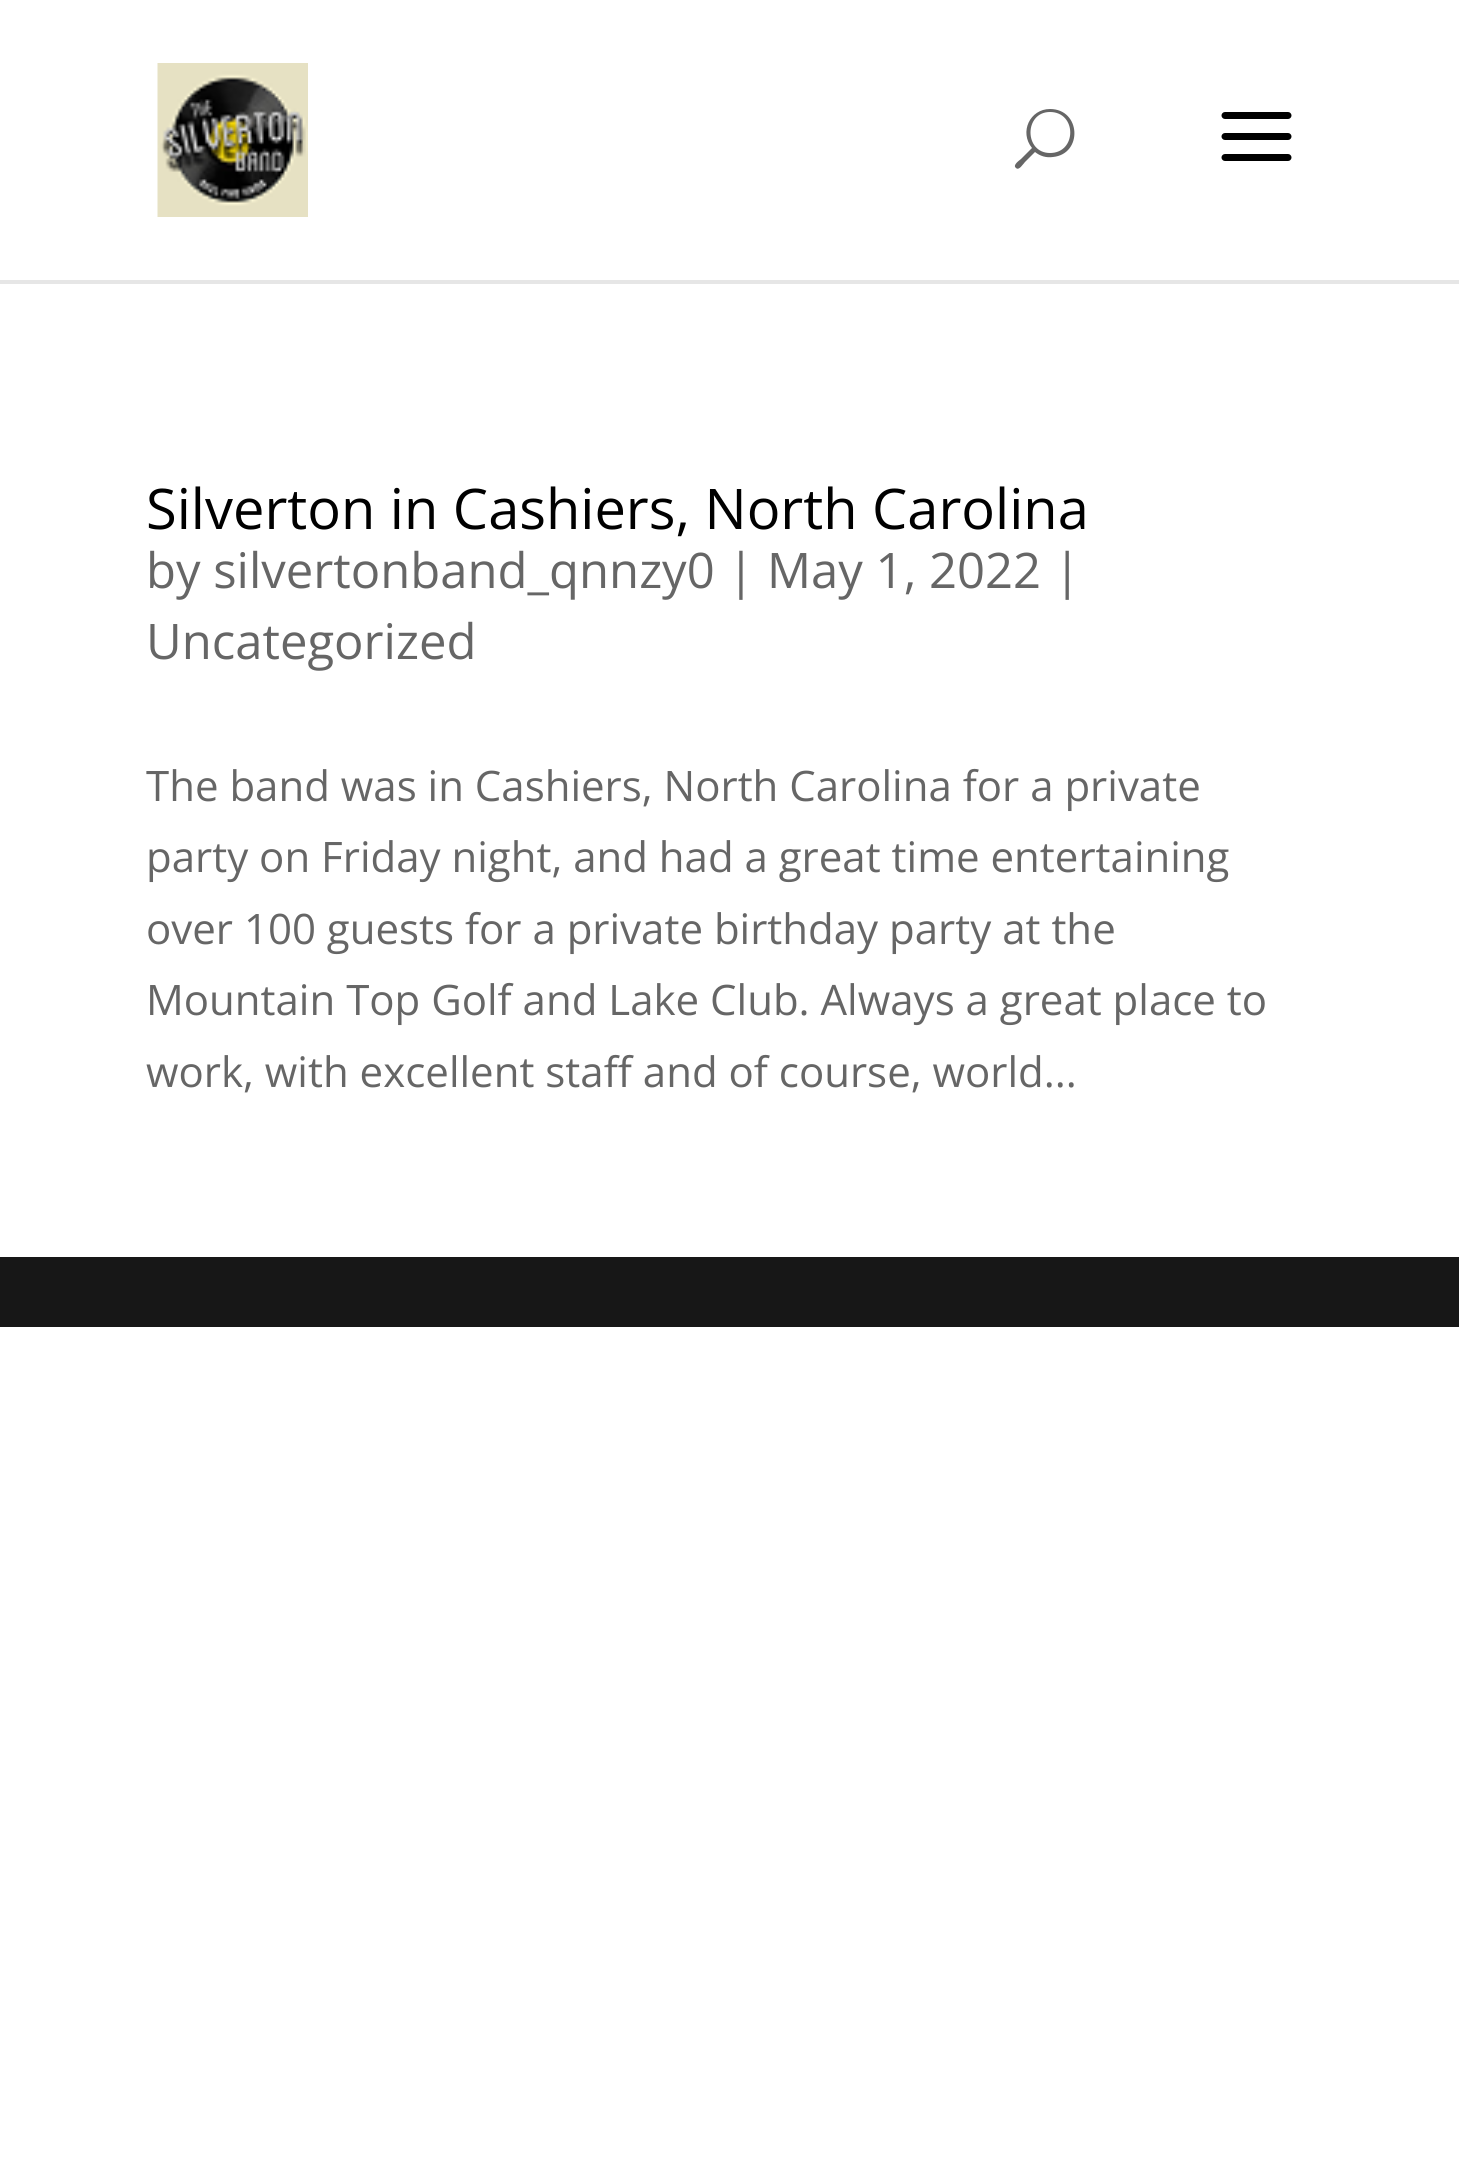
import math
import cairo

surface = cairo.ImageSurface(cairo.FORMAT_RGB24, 1459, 2165)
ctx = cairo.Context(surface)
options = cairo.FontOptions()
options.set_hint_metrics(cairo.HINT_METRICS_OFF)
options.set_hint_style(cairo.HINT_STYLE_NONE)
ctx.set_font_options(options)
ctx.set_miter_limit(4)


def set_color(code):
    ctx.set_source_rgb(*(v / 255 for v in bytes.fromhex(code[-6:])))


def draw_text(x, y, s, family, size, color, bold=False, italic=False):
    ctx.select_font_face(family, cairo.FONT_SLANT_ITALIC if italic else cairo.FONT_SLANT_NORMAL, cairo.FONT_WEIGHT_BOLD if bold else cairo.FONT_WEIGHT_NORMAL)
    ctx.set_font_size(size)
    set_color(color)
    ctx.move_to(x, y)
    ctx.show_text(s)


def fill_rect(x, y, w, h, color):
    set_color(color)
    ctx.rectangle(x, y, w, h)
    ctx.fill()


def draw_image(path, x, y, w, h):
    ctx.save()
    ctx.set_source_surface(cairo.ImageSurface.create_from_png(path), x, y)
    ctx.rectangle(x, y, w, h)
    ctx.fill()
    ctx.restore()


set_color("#ffffff")
ctx.paint()
set_color("#e6e6e6")
ctx.new_path()
ctx.move_to(0, 280)
ctx.line_to(0, 284)
ctx.line_to(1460, 284)
ctx.line_to(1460, 4)
ctx.line_to(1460, 280)
ctx.close_path()
ctx.fill()
draw_image("assets/img1.png", 157, 63, 151, 154)
set_color("#666666")
ctx.new_path()
ctx.move_to(1050, 109)
ctx.curve_to(1030, 109, 1019, 132, 1032, 148)
ctx.line_to(1021, 159)
ctx.curve_to(1020, 160, 1012, 165, 1016, 168)
ctx.curve_to(1019, 171, 1023, 164, 1025, 162)
ctx.line_to(1035, 152)
ctx.curve_to(1040, 156, 1046, 158, 1053, 157)
ctx.curve_to(1083, 154, 1081, 109, 1050, 109)
ctx.close_path()
ctx.move_to(1050, 153)
ctx.curve_to(1024, 153, 1024, 112, 1050, 112)
ctx.curve_to(1077, 112, 1077, 153, 1050, 153)
ctx.close_path()
ctx.fill()
draw_image("assets/img2.png", 1221, 112, 71, 49)
draw_text(146, 529, "Silverton in Cashiers, North Carolina", "Open Sans", 56, "#000000")
draw_text(146, 588, "by silvertonband_qnnzy0 | May 1, 2022 |", "Open Sans", 49, "#666666")
draw_text(146, 659, "Uncategorized", "Open Sans", 49, "#666666")
draw_text(146, 801, "The band was in Cashiers, North Carolina for a private", "Open Sans", 42, "#666666")
draw_text(146, 872, "party on Friday night, and had a great time entertaining", "Open Sans", 42, "#666666")
draw_text(146, 944, "over 100 guests for a private birthday party at the", "Open Sans", 42, "#666666")
draw_text(146, 1015, "Mountain Top Golf and Lake Club. Always a great place to", "Open Sans", 42, "#666666")
draw_text(146, 1087, "work, with excellent staff and of course, world...", "Open Sans", 42, "#666666")
fill_rect(0, 1257, 1459, 70, "#171717")
surface.write_to_png("output.png")
